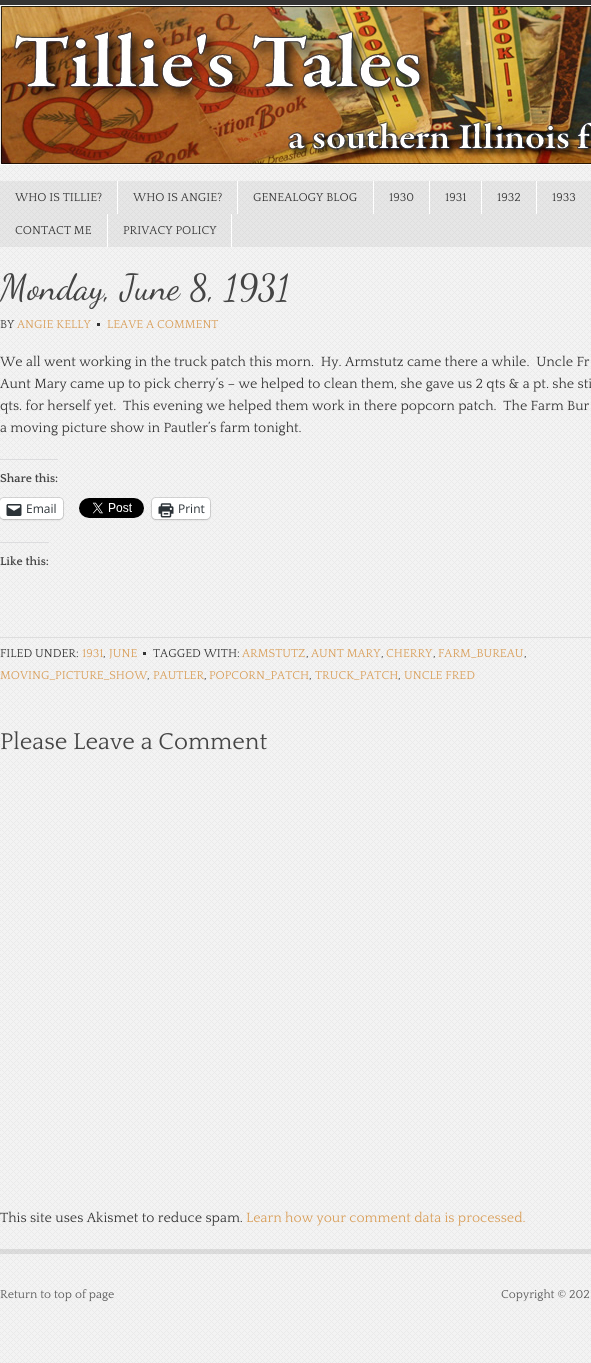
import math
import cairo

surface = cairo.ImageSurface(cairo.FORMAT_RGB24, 591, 1363)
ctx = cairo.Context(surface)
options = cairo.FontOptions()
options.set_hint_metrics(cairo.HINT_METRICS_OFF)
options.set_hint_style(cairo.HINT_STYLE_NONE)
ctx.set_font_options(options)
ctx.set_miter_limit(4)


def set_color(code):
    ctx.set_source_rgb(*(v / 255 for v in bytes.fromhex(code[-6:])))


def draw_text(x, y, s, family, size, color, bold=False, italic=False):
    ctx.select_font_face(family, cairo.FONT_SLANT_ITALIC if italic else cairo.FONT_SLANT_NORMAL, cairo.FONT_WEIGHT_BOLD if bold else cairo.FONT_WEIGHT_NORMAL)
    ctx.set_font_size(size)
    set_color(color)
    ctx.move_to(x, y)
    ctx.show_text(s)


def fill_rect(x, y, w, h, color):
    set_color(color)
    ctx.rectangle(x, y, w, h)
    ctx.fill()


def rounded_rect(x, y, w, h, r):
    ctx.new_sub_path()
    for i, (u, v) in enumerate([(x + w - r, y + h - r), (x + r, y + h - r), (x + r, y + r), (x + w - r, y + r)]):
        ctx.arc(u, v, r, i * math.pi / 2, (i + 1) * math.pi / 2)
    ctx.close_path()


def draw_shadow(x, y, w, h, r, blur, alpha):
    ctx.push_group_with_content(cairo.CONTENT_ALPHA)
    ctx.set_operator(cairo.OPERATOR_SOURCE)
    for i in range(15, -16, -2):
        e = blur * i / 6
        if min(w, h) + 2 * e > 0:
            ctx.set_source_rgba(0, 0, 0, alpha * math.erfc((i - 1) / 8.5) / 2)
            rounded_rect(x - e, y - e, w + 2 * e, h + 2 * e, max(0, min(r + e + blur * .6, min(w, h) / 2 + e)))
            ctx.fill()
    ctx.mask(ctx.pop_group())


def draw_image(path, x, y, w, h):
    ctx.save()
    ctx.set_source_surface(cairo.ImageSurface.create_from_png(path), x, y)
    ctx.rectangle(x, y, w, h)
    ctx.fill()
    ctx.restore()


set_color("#ffffff")
ctx.paint()
draw_image("assets/img1.png", 0, 165, 591, 1198)
fill_rect(0, 0, 591, 5, "#333333")
draw_image("assets/img2.png", 0, 5, 591, 160)
ctx.set_source_rgba(0.604, 0.604, 0.604, 0.15)
ctx.rectangle(0, 181, 591, 66)
ctx.fill()
fill_rect(117, 181, 1, 33, "#ffffff")
draw_text(15, 201, "WHO IS TILLIE?", "Quattrocento", 12, "#333333")
fill_rect(237, 181, 1, 33, "#ffffff")
draw_text(133, 201, "WHO IS ANGIE?", "Quattrocento", 12, "#333333")
fill_rect(373, 181, 1, 33, "#ffffff")
draw_text(253, 201, "GENEALOGY BLOG", "Quattrocento", 12, "#333333")
fill_rect(429, 181, 1, 33, "#ffffff")
draw_text(389, 201, "1930", "Quattrocento", 12, "#333333")
fill_rect(481, 181, 1, 33, "#ffffff")
draw_text(445, 201, "1931", "Quattrocento", 12, "#333333")
fill_rect(536, 181, 1, 33, "#ffffff")
draw_text(497, 201, "1932", "Quattrocento", 12, "#333333")
draw_text(552, 201, "1933", "Quattrocento", 12, "#333333")
fill_rect(107, 214, 1, 33, "#ffffff")
draw_text(15, 234, "CONTACT ME", "Quattrocento", 12, "#333333")
fill_rect(231, 214, 1, 33, "#ffffff")
draw_text(123, 234, "PRIVACY POLICY", "Quattrocento", 12, "#333333")
draw_text(0, 299, "Monday, June 8, 1931", "Dancing Script", 36, "#444444")
draw_text(0, 328, "BY", "Quattrocento", 12, "#333333")
draw_text(17, 328, "ANGIE KELLY", "Quattrocento", 12, "#d99e58")
draw_text(107, 328, "LEAVE A COMMENT", "Quattrocento", 12, "#d99e58")
fill_rect(97, 323, 3, 3, "#333333")
draw_text(0, 366, "We all went working in the truck patch this morn.  Hy. Armstutz came there a while.  Uncle Fr", "Quattrocento", 14, "#333333")
draw_text(0, 388, "Aunt Mary came up to pick cherry’s – we helped to clean them, she gave us 2 qts & a pt. she sti", "Quattrocento", 14, "#333333")
draw_text(0, 410, "qts. for herself yet.  This evening we helped them work in there popcorn patch.  The Farm Bur", "Quattrocento", 14, "#333333")
draw_text(0, 432, "a moving picture show in Pautler’s farm tonight.", "Quattrocento", 14, "#333333")
fill_rect(0, 459, 58, 1, "#dcdcde")
draw_text(0, 482, "Share this:", "Quattrocento", 12, "#444444", bold=True)
rounded_rect(-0.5, 497.5, 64, 22, 4.5)
ctx.set_source_rgba(0, 0, 0, 0.12)
ctx.set_line_width(1)
ctx.stroke()
set_color("#000000")
draw_shadow(0, 499, 63, 21, 4, 1, 0.12)
set_color("#ffffff")
rounded_rect(0, 498, 63, 21, 4)
ctx.fill()
draw_image("assets/img3.png", 6, 504, 16, 12)
draw_text(26, 513, "Email", "Open Sans", 12, "#2c3338")
draw_image("assets/img4.png", 79, 498, 65, 20)
rounded_rect(151.5, 497.5, 59, 22, 4.5)
ctx.set_source_rgba(0, 0, 0, 0.12)
ctx.stroke()
set_color("#000000")
draw_shadow(152, 499, 58, 21, 4, 1, 0.12)
set_color("#ffffff")
rounded_rect(152, 498, 58, 21, 4)
ctx.fill()
draw_image("assets/img5.png", 158, 503, 16, 15)
draw_text(178, 513, "Print", "Open Sans", 12, "#2c3338")
fill_rect(0, 542, 49, 1, "#dcdcde")
draw_text(0, 565, "Like this:", "Quattrocento", 12, "#444444", bold=True)
fill_rect(0, 637, 591, 1, "#dddddd")
draw_text(0, 657, "FILED UNDER:", "Quattrocento", 12, "#333333")
draw_text(82, 657, "1931", "Quattrocento", 12, "#d99e58")
draw_text(103, 657, ",", "Quattrocento", 12, "#333333")
draw_text(109, 657, "JUNE", "Quattrocento", 12, "#d99e58")
draw_text(153, 657, "TAGGED WITH:", "Quattrocento", 12, "#333333")
fill_rect(143, 652, 3, 3, "#333333")
draw_text(242, 657, "ARMSTUTZ", "Quattrocento", 12, "#d99e58")
draw_text(306, 657, ",", "Quattrocento", 12, "#333333")
draw_text(311, 657, "AUNT MARY", "Quattrocento", 12, "#d99e58")
draw_text(386, 657, "CHERRY", "Quattrocento", 12, "#d99e58")
draw_text(438, 657, "FARM_BUREAU", "Quattrocento", 12, "#d99e58")
draw_text(381, 657, ",", "Quattrocento", 12, "#333333")
draw_text(433, 657, ",", "Quattrocento", 12, "#333333")
draw_text(524, 657, ",", "Quattrocento", 12, "#333333")
draw_text(0, 679, "MOVING_PICTURE_SHOW", "Quattrocento", 12, "#d99e58")
draw_text(147, 679, ",", "Quattrocento", 12, "#333333")
draw_text(153, 679, "PAUTLER", "Quattrocento", 12, "#d99e58")
draw_text(209, 679, "POPCORN_PATCH", "Quattrocento", 12, "#d99e58")
draw_text(315, 679, "TRUCK_PATCH", "Quattrocento", 12, "#d99e58")
draw_text(404, 679, "UNCLE FRED", "Quattrocento", 12, "#d99e58")
draw_text(204, 679, ",", "Quattrocento", 12, "#333333")
draw_text(309, 679, ",", "Quattrocento", 12, "#333333")
draw_text(398, 679, ",", "Quattrocento", 12, "#333333")
draw_text(0, 749, "Please Leave a Comment", "Quattrocento", 24, "#444444")
draw_text(0, 1222, "This site uses Akismet to reduce spam.", "Quattrocento", 14, "#333333")
draw_text(246, 1222, "Learn how your comment data is processed.", "Quattrocento", 14, "#d99e58")
ctx.set_source_rgba(0.6, 0.6, 0.6, 0.25)
ctx.rectangle(0, 1249, 591, 5)
ctx.fill()
draw_text(0, 1298, "Return to top of page", "Quattrocento", 12, "#555555")
draw_text(501, 1298, "Copyright © 202", "Quattrocento", 12, "#555555")
surface.write_to_png("output.png")
